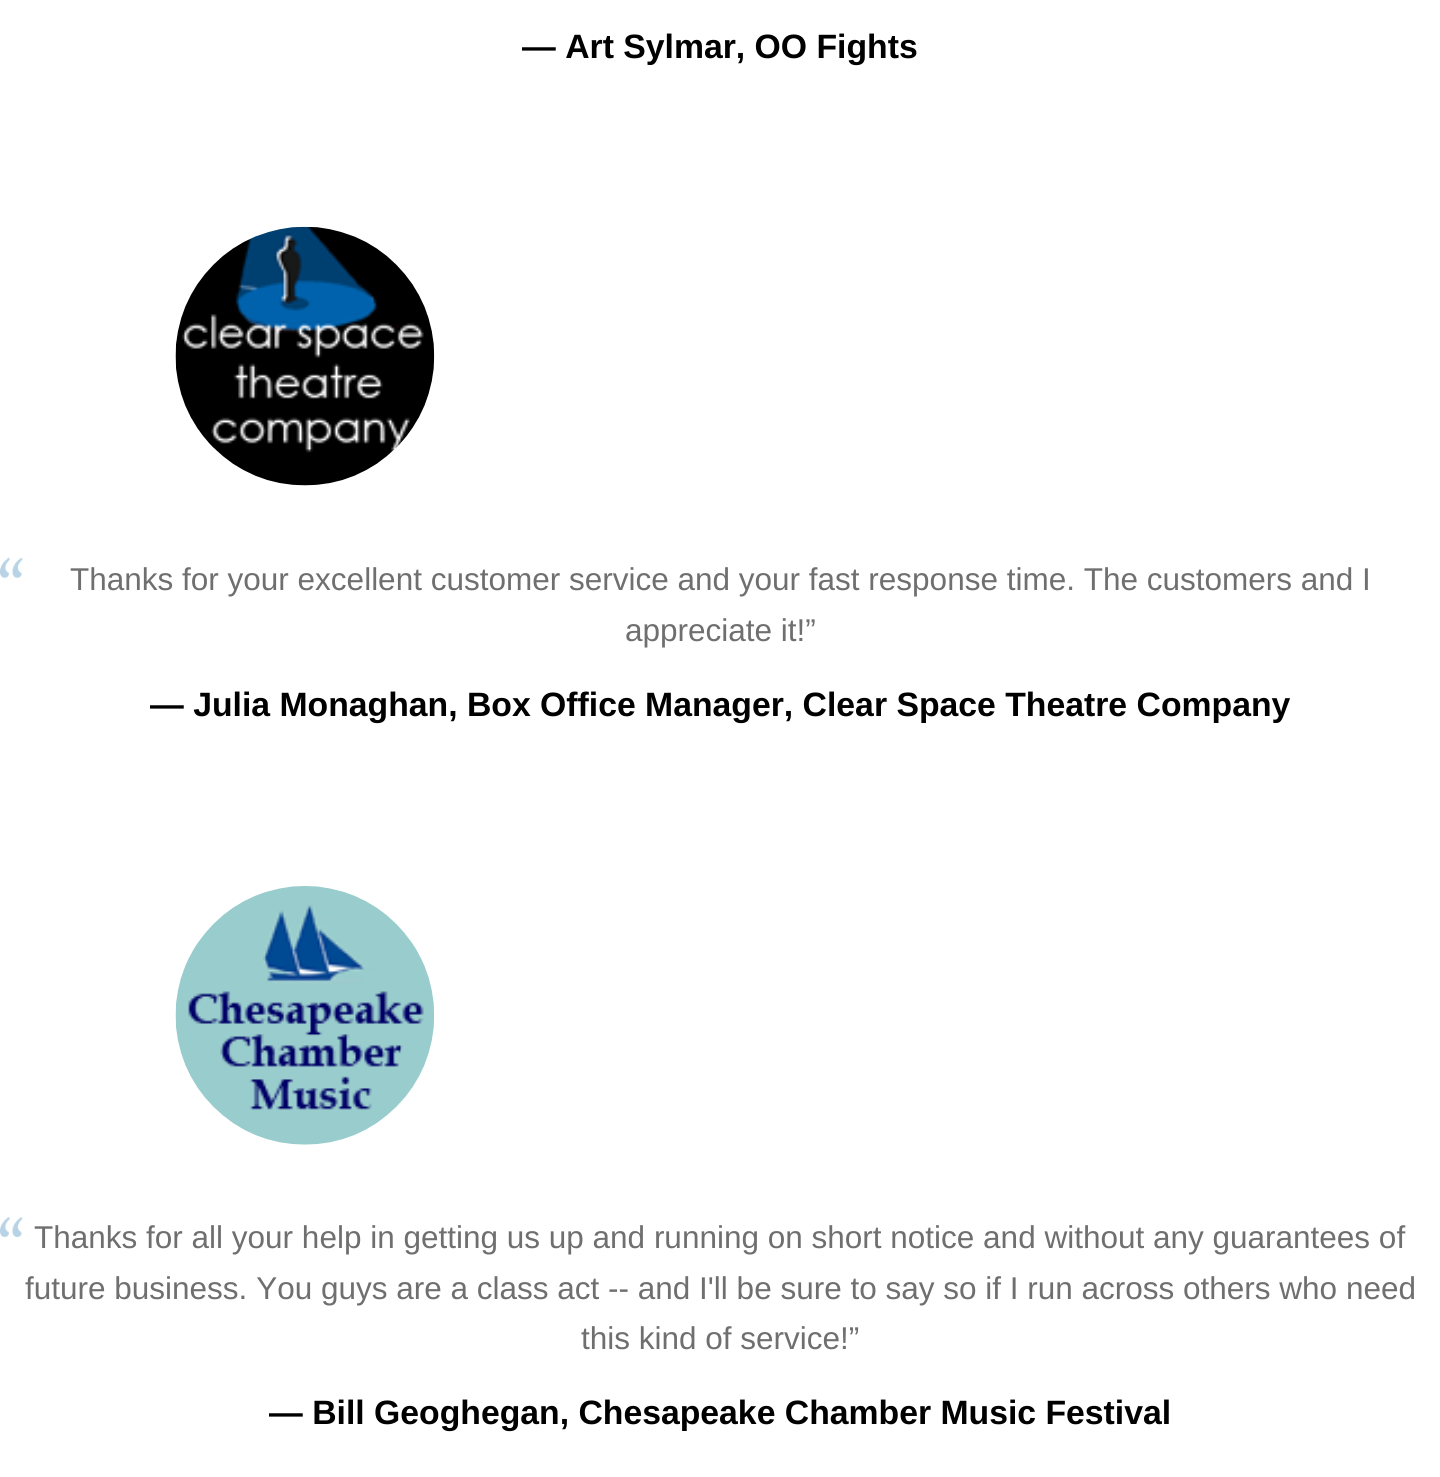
import math
import cairo

surface = cairo.ImageSurface(cairo.FORMAT_RGB24, 1440, 1477)
ctx = cairo.Context(surface)
options = cairo.FontOptions()
options.set_hint_metrics(cairo.HINT_METRICS_OFF)
options.set_hint_style(cairo.HINT_STYLE_NONE)
ctx.set_font_options(options)
ctx.set_miter_limit(4)


def set_color(code):
    ctx.set_source_rgb(*(v / 255 for v in bytes.fromhex(code[-6:])))


def draw_text(x, y, s, family, size, color, bold=False, italic=False):
    ctx.select_font_face(family, cairo.FONT_SLANT_ITALIC if italic else cairo.FONT_SLANT_NORMAL, cairo.FONT_WEIGHT_BOLD if bold else cairo.FONT_WEIGHT_NORMAL)
    ctx.set_font_size(size)
    set_color(color)
    ctx.move_to(x, y)
    ctx.show_text(s)


def draw_image(path, x, y, w, h):
    ctx.save()
    ctx.set_source_surface(cairo.ImageSurface.create_from_png(path), x, y)
    ctx.rectangle(x, y, w, h)
    ctx.fill()
    ctx.restore()


set_color("#ffffff")
ctx.paint()
draw_text(522, 58, "— Art Sylmar, OO Fights", "Liberation Sans", 33.75, "#000000", bold=True)
draw_image("assets/img1.png", 175, 226, 260, 260)
draw_image("assets/img2.png", 0, 557, 23, 21)
draw_text(70, 590, "Thanks for your excellent customer service and your fast response time. The customers and I", "Liberation Sans", 31.5, "#6f6f6f")
draw_text(625, 641, "appreciate it!”", "Liberation Sans", 31.5, "#6f6f6f")
draw_text(150, 716, "— Julia Monaghan, Box Office Manager, Clear Space Theatre Company", "Liberation Sans", 33.75, "#000000", bold=True)
draw_image("assets/img3.png", 175, 886, 260, 259)
draw_image("assets/img4.png", 0, 1216, 23, 21)
draw_text(34, 1248, "Thanks for all your help in getting us up and running on short notice and without any guarantees of", "Liberation Sans", 31.5, "#6f6f6f")
draw_text(25, 1299, "future business. You guys are a class act -- and I'll be sure to say so if I run across others who need", "Liberation Sans", 31.5, "#6f6f6f")
draw_text(581, 1349, "this kind of service!”", "Liberation Sans", 31.5, "#6f6f6f")
draw_text(269, 1424, "— Bill Geoghegan, Chesapeake Chamber Music Festival", "Liberation Sans", 33.75, "#000000", bold=True)
surface.write_to_png("output.png")
